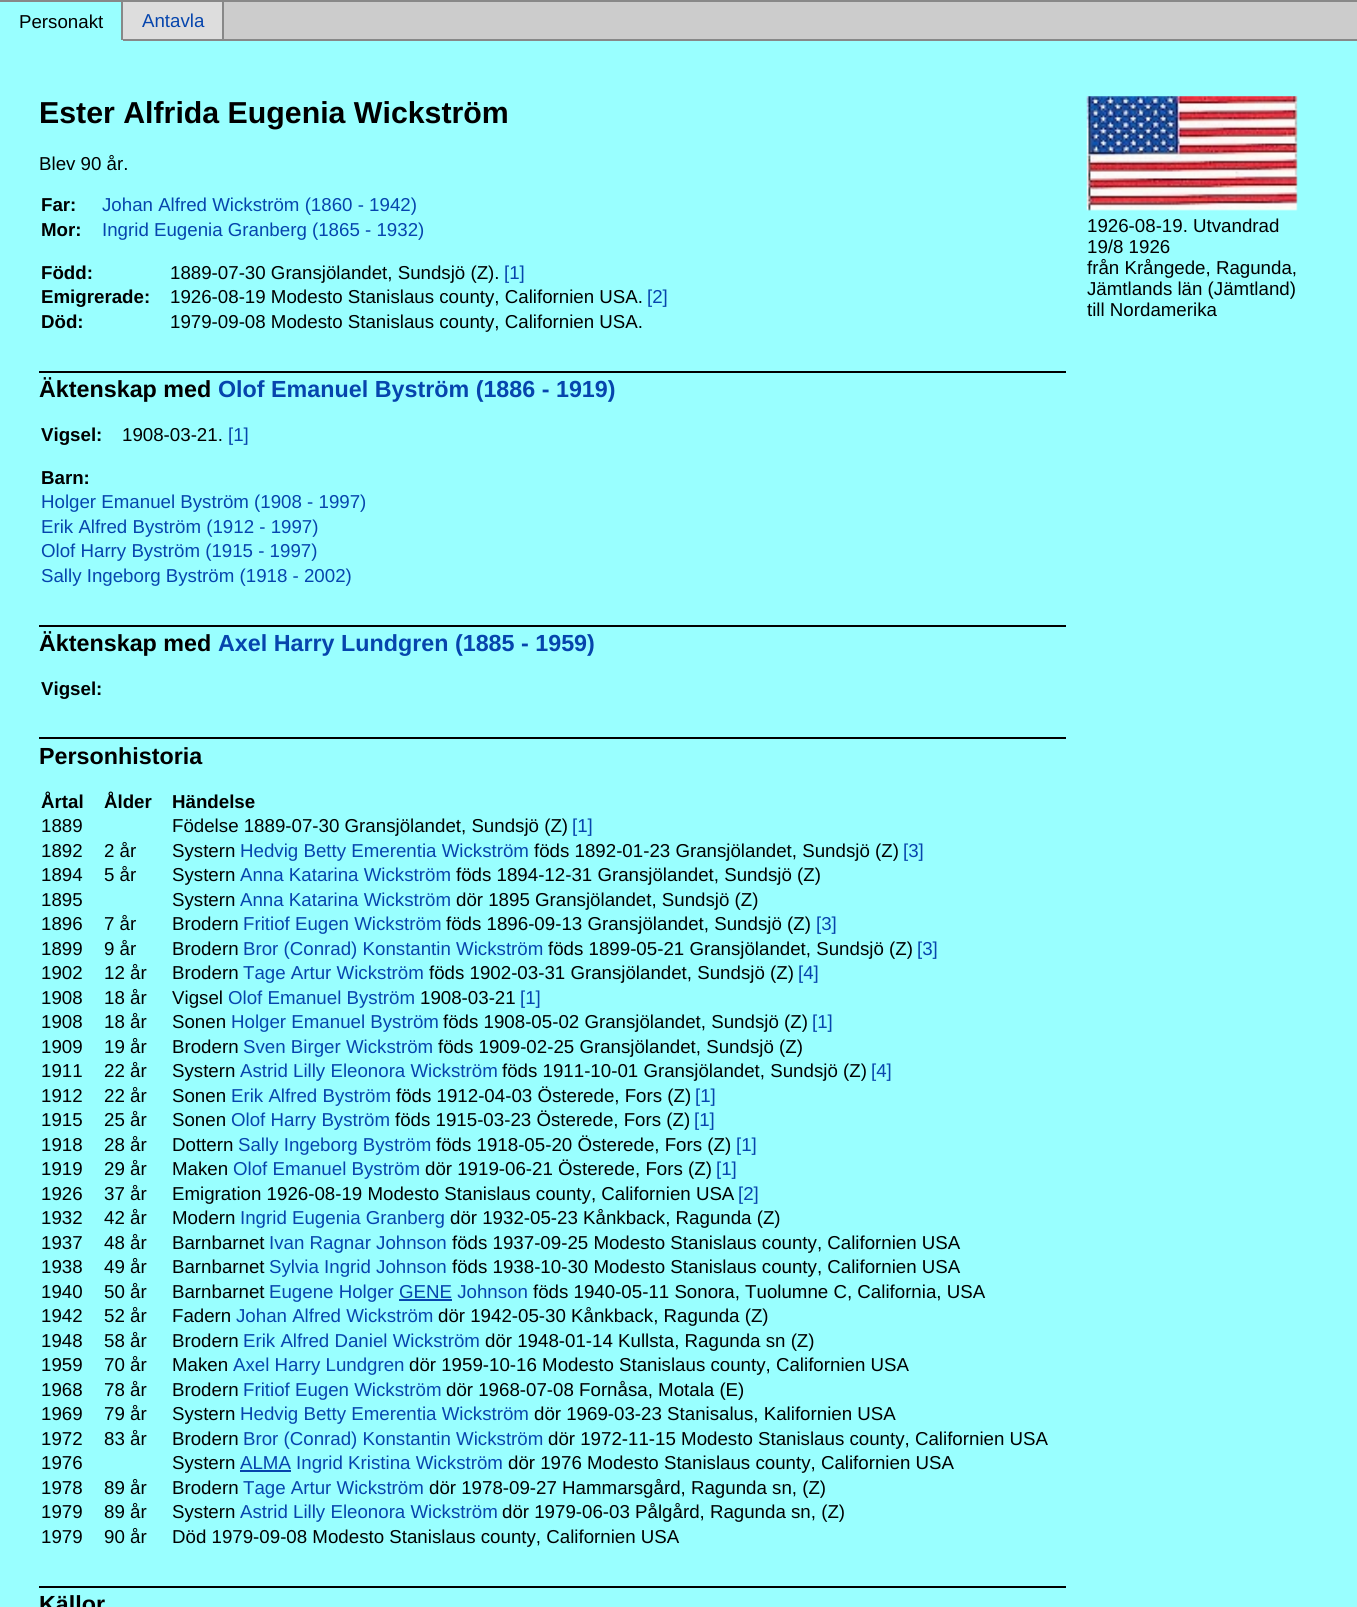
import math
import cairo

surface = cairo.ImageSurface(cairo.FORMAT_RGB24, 1357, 1607)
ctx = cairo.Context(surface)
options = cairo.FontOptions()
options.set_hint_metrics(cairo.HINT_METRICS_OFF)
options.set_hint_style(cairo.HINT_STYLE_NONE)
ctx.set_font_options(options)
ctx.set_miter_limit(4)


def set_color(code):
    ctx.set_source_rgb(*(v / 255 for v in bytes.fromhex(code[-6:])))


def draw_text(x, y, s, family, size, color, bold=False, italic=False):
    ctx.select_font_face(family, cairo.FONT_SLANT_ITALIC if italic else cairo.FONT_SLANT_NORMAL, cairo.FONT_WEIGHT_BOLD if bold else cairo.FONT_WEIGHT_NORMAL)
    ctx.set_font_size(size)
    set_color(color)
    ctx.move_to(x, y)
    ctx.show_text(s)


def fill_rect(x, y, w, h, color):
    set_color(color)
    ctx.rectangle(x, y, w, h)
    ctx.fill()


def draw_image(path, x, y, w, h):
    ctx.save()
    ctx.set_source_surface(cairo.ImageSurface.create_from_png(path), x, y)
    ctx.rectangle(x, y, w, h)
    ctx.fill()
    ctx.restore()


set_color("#99ffff")
ctx.paint()
fill_rect(0, 0, 1357, 2, "#888888")
fill_rect(121, 0, 2, 40, "#888888")
draw_text(19, 28, "Personakt", "Liberation Sans", 18.7, "#000000")
fill_rect(123, 2, 99, 37, "#dddddd")
fill_rect(222, 0, 2, 40, "#888888")
fill_rect(123, 39, 1234, 2, "#888888")
draw_text(142, 27, "Antavla", "Liberation Sans", 18.7, "#0645ad")
fill_rect(224, 2, 1133, 37, "#cccccc")
draw_text(39, 123, "Ester Alfrida Eugenia Wickström", "Liberation Sans", 30.3, "#000000", bold=True)
draw_text(39, 170, "Blev 90 år.", "Liberation Sans", 18.7, "#000000")
draw_text(41, 211, "Far:", "Liberation Sans", 18.7, "#000000", bold=True)
draw_text(102, 211, "Johan Alfred Wickström (1860 - 1942)", "Liberation Sans", 18.7, "#0645ad")
draw_text(41, 236, "Mor:", "Liberation Sans", 18.7, "#000000", bold=True)
draw_text(102, 236, "Ingrid Eugenia Granberg (1865 - 1932)", "Liberation Sans", 18.7, "#0645ad")
draw_text(41, 279, "Född:", "Liberation Sans", 18.7, "#000000", bold=True)
draw_text(170, 279, "1889-07-30 Gransjölandet, Sundsjö (Z).", "Liberation Sans", 18.7, "#000000")
draw_text(504, 279, "[1]", "Liberation Sans", 18.7, "#0645ad")
draw_text(41, 303, "Emigrerade:", "Liberation Sans", 18.7, "#000000", bold=True)
draw_text(170, 303, "1926-08-19 Modesto Stanislaus county, Californien USA.", "Liberation Sans", 18.7, "#000000")
draw_text(647, 303, "[2]", "Liberation Sans", 18.7, "#0645ad")
draw_text(41, 328, "Död:", "Liberation Sans", 18.7, "#000000", bold=True)
draw_text(170, 328, "1979-09-08 Modesto Stanislaus county, Californien USA.", "Liberation Sans", 18.7, "#000000")
fill_rect(39, 371, 1027, 2, "#000000")
draw_text(39, 397, "Äktenskap med", "Liberation Sans", 23.3, "#000000", bold=True)
draw_text(218, 397, "Olof Emanuel Byström (1886 - 1919)", "Liberation Sans", 23.3, "#0645ad", bold=True)
draw_text(41, 441, "Vigsel:", "Liberation Sans", 18.7, "#000000", bold=True)
draw_text(122, 441, "1908-03-21.", "Liberation Sans", 18.7, "#000000")
draw_text(228, 441, "[1]", "Liberation Sans", 18.7, "#0645ad")
draw_text(41, 484, "Barn:", "Liberation Sans", 18.7, "#000000", bold=True)
draw_text(41, 508, "Holger Emanuel Byström (1908 - 1997)", "Liberation Sans", 18.7, "#0645ad")
draw_text(41, 533, "Erik Alfred Byström (1912 - 1997)", "Liberation Sans", 18.7, "#0645ad")
draw_text(41, 557, "Olof Harry Byström (1915 - 1997)", "Liberation Sans", 18.7, "#0645ad")
draw_text(41, 582, "Sally Ingeborg Byström (1918 - 2002)", "Liberation Sans", 18.7, "#0645ad")
fill_rect(39, 625, 1027, 2, "#000000")
draw_text(39, 651, "Äktenskap med", "Liberation Sans", 23.3, "#000000", bold=True)
draw_text(218, 651, "Axel Harry Lundgren (1885 - 1959)", "Liberation Sans", 23.3, "#0645ad", bold=True)
draw_text(41, 695, "Vigsel:", "Liberation Sans", 18.7, "#000000", bold=True)
fill_rect(39, 737, 1027, 2, "#000000")
draw_text(39, 764, "Personhistoria", "Liberation Sans", 23.3, "#000000", bold=True)
draw_text(41, 808, "Årtal", "Liberation Sans", 18.7, "#000000", bold=True)
draw_text(104, 808, "Ålder", "Liberation Sans", 18.7, "#000000", bold=True)
draw_text(172, 808, "Händelse", "Liberation Sans", 18.7, "#000000", bold=True)
draw_text(41, 832, "1889", "Liberation Sans", 18.7, "#000000")
draw_text(172, 832, "Födelse 1889-07-30 Gransjölandet, Sundsjö (Z)", "Liberation Sans", 18.7, "#000000")
draw_text(572, 832, "[1]", "Liberation Sans", 18.7, "#0645ad")
draw_text(41, 857, "1892", "Liberation Sans", 18.7, "#000000")
draw_text(104, 857, "2 år", "Liberation Sans", 18.7, "#000000")
draw_text(172, 857, "Systern", "Liberation Sans", 18.7, "#000000")
draw_text(240, 857, "Hedvig Betty Emerentia Wickström", "Liberation Sans", 18.7, "#0645ad")
draw_text(534, 857, "föds 1892-01-23 Gransjölandet, Sundsjö (Z)", "Liberation Sans", 18.7, "#000000")
draw_text(903, 857, "[3]", "Liberation Sans", 18.7, "#0645ad")
draw_text(41, 881, "1894", "Liberation Sans", 18.7, "#000000")
draw_text(104, 881, "5 år", "Liberation Sans", 18.7, "#000000")
draw_text(172, 881, "Systern", "Liberation Sans", 18.7, "#000000")
draw_text(240, 881, "Anna Katarina Wickström", "Liberation Sans", 18.7, "#0645ad")
draw_text(456, 881, "föds 1894-12-31 Gransjölandet, Sundsjö (Z)", "Liberation Sans", 18.7, "#000000")
draw_text(41, 906, "1895", "Liberation Sans", 18.7, "#000000")
draw_text(172, 906, "Systern", "Liberation Sans", 18.7, "#000000")
draw_text(240, 906, "Anna Katarina Wickström", "Liberation Sans", 18.7, "#0645ad")
draw_text(456, 906, "dör 1895 Gransjölandet, Sundsjö (Z)", "Liberation Sans", 18.7, "#000000")
draw_text(41, 930, "1896", "Liberation Sans", 18.7, "#000000")
draw_text(104, 930, "7 år", "Liberation Sans", 18.7, "#000000")
draw_text(172, 930, "Brodern", "Liberation Sans", 18.7, "#000000")
draw_text(243, 930, "Fritiof Eugen Wickström", "Liberation Sans", 18.7, "#0645ad")
draw_text(446, 930, "föds 1896-09-13 Gransjölandet, Sundsjö (Z)", "Liberation Sans", 18.7, "#000000")
draw_text(816, 930, "[3]", "Liberation Sans", 18.7, "#0645ad")
draw_text(41, 955, "1899", "Liberation Sans", 18.7, "#000000")
draw_text(104, 955, "9 år", "Liberation Sans", 18.7, "#000000")
draw_text(172, 955, "Brodern", "Liberation Sans", 18.7, "#000000")
draw_text(243, 955, "Bror (Conrad) Konstantin Wickström", "Liberation Sans", 18.7, "#0645ad")
draw_text(548, 955, "föds 1899-05-21 Gransjölandet, Sundsjö (Z)", "Liberation Sans", 18.7, "#000000")
draw_text(917, 955, "[3]", "Liberation Sans", 18.7, "#0645ad")
draw_text(41, 979, "1902", "Liberation Sans", 18.7, "#000000")
draw_text(104, 979, "12 år", "Liberation Sans", 18.7, "#000000")
draw_text(172, 979, "Brodern", "Liberation Sans", 18.7, "#000000")
draw_text(243, 979, "Tage Artur Wickström", "Liberation Sans", 18.7, "#0645ad")
draw_text(429, 979, "föds 1902-03-31 Gransjölandet, Sundsjö (Z)", "Liberation Sans", 18.7, "#000000")
draw_text(798, 979, "[4]", "Liberation Sans", 18.7, "#0645ad")
draw_text(41, 1004, "1908", "Liberation Sans", 18.7, "#000000")
draw_text(104, 1004, "18 år", "Liberation Sans", 18.7, "#000000")
draw_text(172, 1004, "Vigsel", "Liberation Sans", 18.7, "#000000")
draw_text(228, 1004, "Olof Emanuel Byström", "Liberation Sans", 18.7, "#0645ad")
draw_text(420, 1004, "1908-03-21", "Liberation Sans", 18.7, "#000000")
draw_text(520, 1004, "[1]", "Liberation Sans", 18.7, "#0645ad")
draw_text(41, 1028, "1908", "Liberation Sans", 18.7, "#000000")
draw_text(104, 1028, "18 år", "Liberation Sans", 18.7, "#000000")
draw_text(172, 1028, "Sonen", "Liberation Sans", 18.7, "#000000")
draw_text(231, 1028, "Holger Emanuel Byström", "Liberation Sans", 18.7, "#0645ad")
draw_text(443, 1028, "föds 1908-05-02 Gransjölandet, Sundsjö (Z)", "Liberation Sans", 18.7, "#000000")
draw_text(812, 1028, "[1]", "Liberation Sans", 18.7, "#0645ad")
draw_text(41, 1053, "1909", "Liberation Sans", 18.7, "#000000")
draw_text(104, 1053, "19 år", "Liberation Sans", 18.7, "#000000")
draw_text(172, 1053, "Brodern", "Liberation Sans", 18.7, "#000000")
draw_text(243, 1053, "Sven Birger Wickström", "Liberation Sans", 18.7, "#0645ad")
draw_text(438, 1053, "föds 1909-02-25 Gransjölandet, Sundsjö (Z)", "Liberation Sans", 18.7, "#000000")
draw_text(41, 1077, "1911", "Liberation Sans", 18.7, "#000000")
draw_text(104, 1077, "22 år", "Liberation Sans", 18.7, "#000000")
draw_text(172, 1077, "Systern", "Liberation Sans", 18.7, "#000000")
draw_text(240, 1077, "Astrid Lilly Eleonora Wickström", "Liberation Sans", 18.7, "#0645ad")
draw_text(502, 1077, "föds 1911-10-01 Gransjölandet, Sundsjö (Z)", "Liberation Sans", 18.7, "#000000")
draw_text(871, 1077, "[4]", "Liberation Sans", 18.7, "#0645ad")
draw_text(41, 1102, "1912", "Liberation Sans", 18.7, "#000000")
draw_text(104, 1102, "22 år", "Liberation Sans", 18.7, "#000000")
draw_text(172, 1102, "Sonen", "Liberation Sans", 18.7, "#000000")
draw_text(231, 1102, "Erik Alfred Byström", "Liberation Sans", 18.7, "#0645ad")
draw_text(396, 1102, "föds 1912-04-03 Österede, Fors (Z)", "Liberation Sans", 18.7, "#000000")
draw_text(695, 1102, "[1]", "Liberation Sans", 18.7, "#0645ad")
draw_text(41, 1126, "1915", "Liberation Sans", 18.7, "#000000")
draw_text(104, 1126, "25 år", "Liberation Sans", 18.7, "#000000")
draw_text(172, 1126, "Sonen", "Liberation Sans", 18.7, "#000000")
draw_text(231, 1126, "Olof Harry Byström", "Liberation Sans", 18.7, "#0645ad")
draw_text(395, 1126, "föds 1915-03-23 Österede, Fors (Z)", "Liberation Sans", 18.7, "#000000")
draw_text(694, 1126, "[1]", "Liberation Sans", 18.7, "#0645ad")
draw_text(41, 1151, "1918", "Liberation Sans", 18.7, "#000000")
draw_text(104, 1151, "28 år", "Liberation Sans", 18.7, "#000000")
draw_text(172, 1151, "Dottern", "Liberation Sans", 18.7, "#000000")
draw_text(238, 1151, "Sally Ingeborg Byström", "Liberation Sans", 18.7, "#0645ad")
draw_text(436, 1151, "föds 1918-05-20 Österede, Fors (Z)", "Liberation Sans", 18.7, "#000000")
draw_text(736, 1151, "[1]", "Liberation Sans", 18.7, "#0645ad")
draw_text(41, 1175, "1919", "Liberation Sans", 18.7, "#000000")
draw_text(104, 1175, "29 år", "Liberation Sans", 18.7, "#000000")
draw_text(172, 1175, "Maken", "Liberation Sans", 18.7, "#000000")
draw_text(233, 1175, "Olof Emanuel Byström", "Liberation Sans", 18.7, "#0645ad")
draw_text(425, 1175, "dör 1919-06-21 Österede, Fors (Z)", "Liberation Sans", 18.7, "#000000")
draw_text(716, 1175, "[1]", "Liberation Sans", 18.7, "#0645ad")
draw_text(41, 1200, "1926", "Liberation Sans", 18.7, "#000000")
draw_text(104, 1200, "37 år", "Liberation Sans", 18.7, "#000000")
draw_text(172, 1200, "Emigration 1926-08-19 Modesto Stanislaus county, Californien USA", "Liberation Sans", 18.7, "#000000")
draw_text(738, 1200, "[2]", "Liberation Sans", 18.7, "#0645ad")
draw_text(41, 1224, "1932", "Liberation Sans", 18.7, "#000000")
draw_text(104, 1224, "42 år", "Liberation Sans", 18.7, "#000000")
draw_text(172, 1224, "Modern", "Liberation Sans", 18.7, "#000000")
draw_text(240, 1224, "Ingrid Eugenia Granberg", "Liberation Sans", 18.7, "#0645ad")
draw_text(450, 1224, "dör 1932-05-23 Kånkback, Ragunda (Z)", "Liberation Sans", 18.7, "#000000")
draw_text(41, 1249, "1937", "Liberation Sans", 18.7, "#000000")
draw_text(104, 1249, "48 år", "Liberation Sans", 18.7, "#000000")
draw_text(172, 1249, "Barnbarnet", "Liberation Sans", 18.7, "#000000")
draw_text(269, 1249, "Ivan Ragnar Johnson", "Liberation Sans", 18.7, "#0645ad")
draw_text(452, 1249, "föds 1937-09-25 Modesto Stanislaus county, Californien USA", "Liberation Sans", 18.7, "#000000")
draw_text(41, 1273, "1938", "Liberation Sans", 18.7, "#000000")
draw_text(104, 1273, "49 år", "Liberation Sans", 18.7, "#000000")
draw_text(172, 1273, "Barnbarnet", "Liberation Sans", 18.7, "#000000")
draw_text(269, 1273, "Sylvia Ingrid Johnson", "Liberation Sans", 18.7, "#0645ad")
draw_text(452, 1273, "föds 1938-10-30 Modesto Stanislaus county, Californien USA", "Liberation Sans", 18.7, "#000000")
draw_text(41, 1298, "1940", "Liberation Sans", 18.7, "#000000")
draw_text(104, 1298, "50 år", "Liberation Sans", 18.7, "#000000")
draw_text(172, 1298, "Barnbarnet", "Liberation Sans", 18.7, "#000000")
draw_text(269, 1298, "Eugene Holger GENE Johnson", "Liberation Sans", 18.7, "#0645ad")
fill_rect(399, 1299, 53, 2, "#0645ad")
draw_text(533, 1298, "föds 1940-05-11 Sonora, Tuolumne C, California, USA", "Liberation Sans", 18.7, "#000000")
draw_text(41, 1322, "1942", "Liberation Sans", 18.7, "#000000")
draw_text(104, 1322, "52 år", "Liberation Sans", 18.7, "#000000")
draw_text(172, 1322, "Fadern", "Liberation Sans", 18.7, "#000000")
draw_text(236, 1322, "Johan Alfred Wickström", "Liberation Sans", 18.7, "#0645ad")
draw_text(438, 1322, "dör 1942-05-30 Kånkback, Ragunda (Z)", "Liberation Sans", 18.7, "#000000")
draw_text(41, 1347, "1948", "Liberation Sans", 18.7, "#000000")
draw_text(104, 1347, "58 år", "Liberation Sans", 18.7, "#000000")
draw_text(172, 1347, "Brodern", "Liberation Sans", 18.7, "#000000")
draw_text(243, 1347, "Erik Alfred Daniel Wickström", "Liberation Sans", 18.7, "#0645ad")
draw_text(485, 1347, "dör 1948-01-14 Kullsta, Ragunda sn (Z)", "Liberation Sans", 18.7, "#000000")
draw_text(41, 1371, "1959", "Liberation Sans", 18.7, "#000000")
draw_text(104, 1371, "70 år", "Liberation Sans", 18.7, "#000000")
draw_text(172, 1371, "Maken", "Liberation Sans", 18.7, "#000000")
draw_text(233, 1371, "Axel Harry Lundgren", "Liberation Sans", 18.7, "#0645ad")
draw_text(409, 1371, "dör 1959-10-16 Modesto Stanislaus county, Californien USA", "Liberation Sans", 18.7, "#000000")
draw_text(41, 1396, "1968", "Liberation Sans", 18.7, "#000000")
draw_text(104, 1396, "78 år", "Liberation Sans", 18.7, "#000000")
draw_text(172, 1396, "Brodern", "Liberation Sans", 18.7, "#000000")
draw_text(243, 1396, "Fritiof Eugen Wickström", "Liberation Sans", 18.7, "#0645ad")
draw_text(446, 1396, "dör 1968-07-08 Fornåsa, Motala (E)", "Liberation Sans", 18.7, "#000000")
draw_text(41, 1420, "1969", "Liberation Sans", 18.7, "#000000")
draw_text(104, 1420, "79 år", "Liberation Sans", 18.7, "#000000")
draw_text(172, 1420, "Systern", "Liberation Sans", 18.7, "#000000")
draw_text(240, 1420, "Hedvig Betty Emerentia Wickström", "Liberation Sans", 18.7, "#0645ad")
draw_text(534, 1420, "dör 1969-03-23 Stanisalus, Kalifornien USA", "Liberation Sans", 18.7, "#000000")
draw_text(41, 1445, "1972", "Liberation Sans", 18.7, "#000000")
draw_text(104, 1445, "83 år", "Liberation Sans", 18.7, "#000000")
draw_text(172, 1445, "Brodern", "Liberation Sans", 18.7, "#000000")
draw_text(243, 1445, "Bror (Conrad) Konstantin Wickström", "Liberation Sans", 18.7, "#0645ad")
draw_text(548, 1445, "dör 1972-11-15 Modesto Stanislaus county, Californien USA", "Liberation Sans", 18.7, "#000000")
draw_text(41, 1469, "1976", "Liberation Sans", 18.7, "#000000")
draw_text(172, 1469, "Systern", "Liberation Sans", 18.7, "#000000")
fill_rect(240, 1470, 51, 2, "#0645ad")
draw_text(240, 1469, "ALMA Ingrid Kristina Wickström", "Liberation Sans", 18.7, "#0645ad")
draw_text(508, 1469, "dör 1976 Modesto Stanislaus county, Californien USA", "Liberation Sans", 18.7, "#000000")
draw_text(41, 1494, "1978", "Liberation Sans", 18.7, "#000000")
draw_text(104, 1494, "89 år", "Liberation Sans", 18.7, "#000000")
draw_text(172, 1494, "Brodern", "Liberation Sans", 18.7, "#000000")
draw_text(243, 1494, "Tage Artur Wickström", "Liberation Sans", 18.7, "#0645ad")
draw_text(429, 1494, "dör 1978-09-27 Hammarsgård, Ragunda sn, (Z)", "Liberation Sans", 18.7, "#000000")
draw_text(41, 1518, "1979", "Liberation Sans", 18.7, "#000000")
draw_text(104, 1518, "89 år", "Liberation Sans", 18.7, "#000000")
draw_text(172, 1518, "Systern", "Liberation Sans", 18.7, "#000000")
draw_text(240, 1518, "Astrid Lilly Eleonora Wickström", "Liberation Sans", 18.7, "#0645ad")
draw_text(502, 1518, "dör 1979-06-03 Pålgård, Ragunda sn, (Z)", "Liberation Sans", 18.7, "#000000")
draw_text(41, 1543, "1979", "Liberation Sans", 18.7, "#000000")
draw_text(104, 1543, "90 år", "Liberation Sans", 18.7, "#000000")
draw_text(172, 1543, "Död 1979-09-08 Modesto Stanislaus county, Californien USA", "Liberation Sans", 18.7, "#000000")
fill_rect(39, 1586, 1027, 2, "#000000")
draw_text(39, 1612, "Källor", "Liberation Sans", 23.3, "#000000", bold=True)
draw_image("assets/img1.png", 1086, 96, 212, 115)
draw_text(1087, 232, "1926-08-19. Utvandrad", "Liberation Sans", 18.7, "#000000")
draw_text(1087, 253, "19/8 1926", "Liberation Sans", 18.7, "#000000")
draw_text(1087, 274, "från Krångede, Ragunda,", "Liberation Sans", 18.7, "#000000")
draw_text(1087, 295, "Jämtlands län (Jämtland)", "Liberation Sans", 18.7, "#000000")
draw_text(1087, 316, "till Nordamerika", "Liberation Sans", 18.7, "#000000")
surface.write_to_png("output.png")
